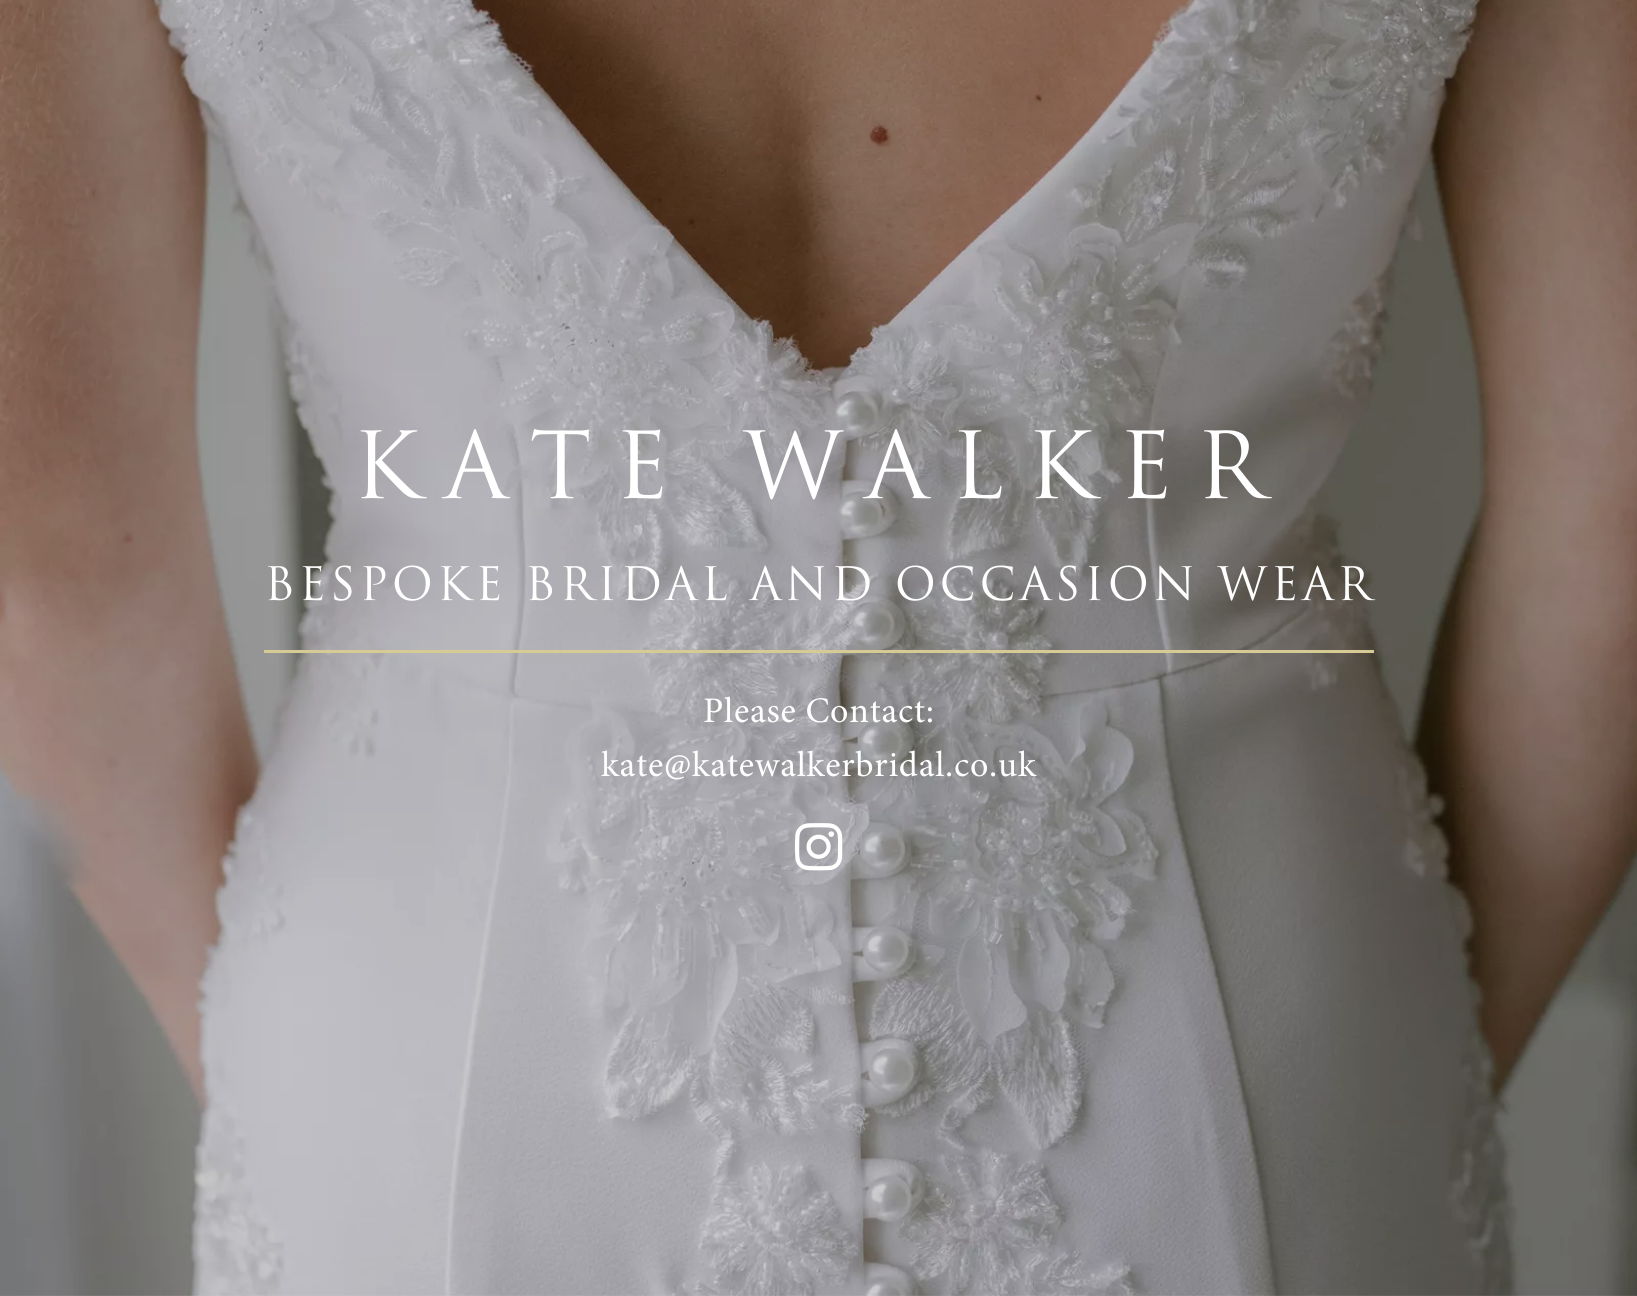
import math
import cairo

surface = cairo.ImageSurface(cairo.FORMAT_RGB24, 1637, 1296)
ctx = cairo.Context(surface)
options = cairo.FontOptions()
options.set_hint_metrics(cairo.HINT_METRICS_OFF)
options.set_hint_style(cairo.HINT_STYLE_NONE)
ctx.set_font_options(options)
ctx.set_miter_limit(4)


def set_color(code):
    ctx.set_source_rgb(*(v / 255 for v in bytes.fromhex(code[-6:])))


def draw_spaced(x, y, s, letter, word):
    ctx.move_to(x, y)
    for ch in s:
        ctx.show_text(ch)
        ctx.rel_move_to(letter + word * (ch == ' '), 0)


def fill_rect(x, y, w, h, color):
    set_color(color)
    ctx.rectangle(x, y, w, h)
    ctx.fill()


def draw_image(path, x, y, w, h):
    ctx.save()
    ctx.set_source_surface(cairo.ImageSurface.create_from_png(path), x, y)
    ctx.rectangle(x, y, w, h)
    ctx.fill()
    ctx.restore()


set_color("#ffffff")
ctx.paint()
draw_image("assets/img1.png", 0, 0, 1637, 1296)
ctx.select_font_face("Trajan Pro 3")
ctx.set_font_size(90)
set_color("#ffffff")
draw_spaced(352, 498, "KATE WALKER", 22.5, 0)
fill_rect(264, 650, 1110, 3, "#d6cb94")
ctx.set_font_size(45)
set_color("#ffffff")
draw_spaced(264, 600, "BESPOKE BRIDAL AND OCCASION WEAR", 3.75, 0)
ctx.select_font_face("Minion")
ctx.set_font_size(36)
draw_spaced(703, 722, "Please Contact:", 0.75, 0)
draw_spaced(601, 776, "kate@katewalkerbridal.co.uk", 0.75, 0)
draw_image("assets/img2.png", 795, 823, 48, 48)
surface.write_to_png("output.png")
